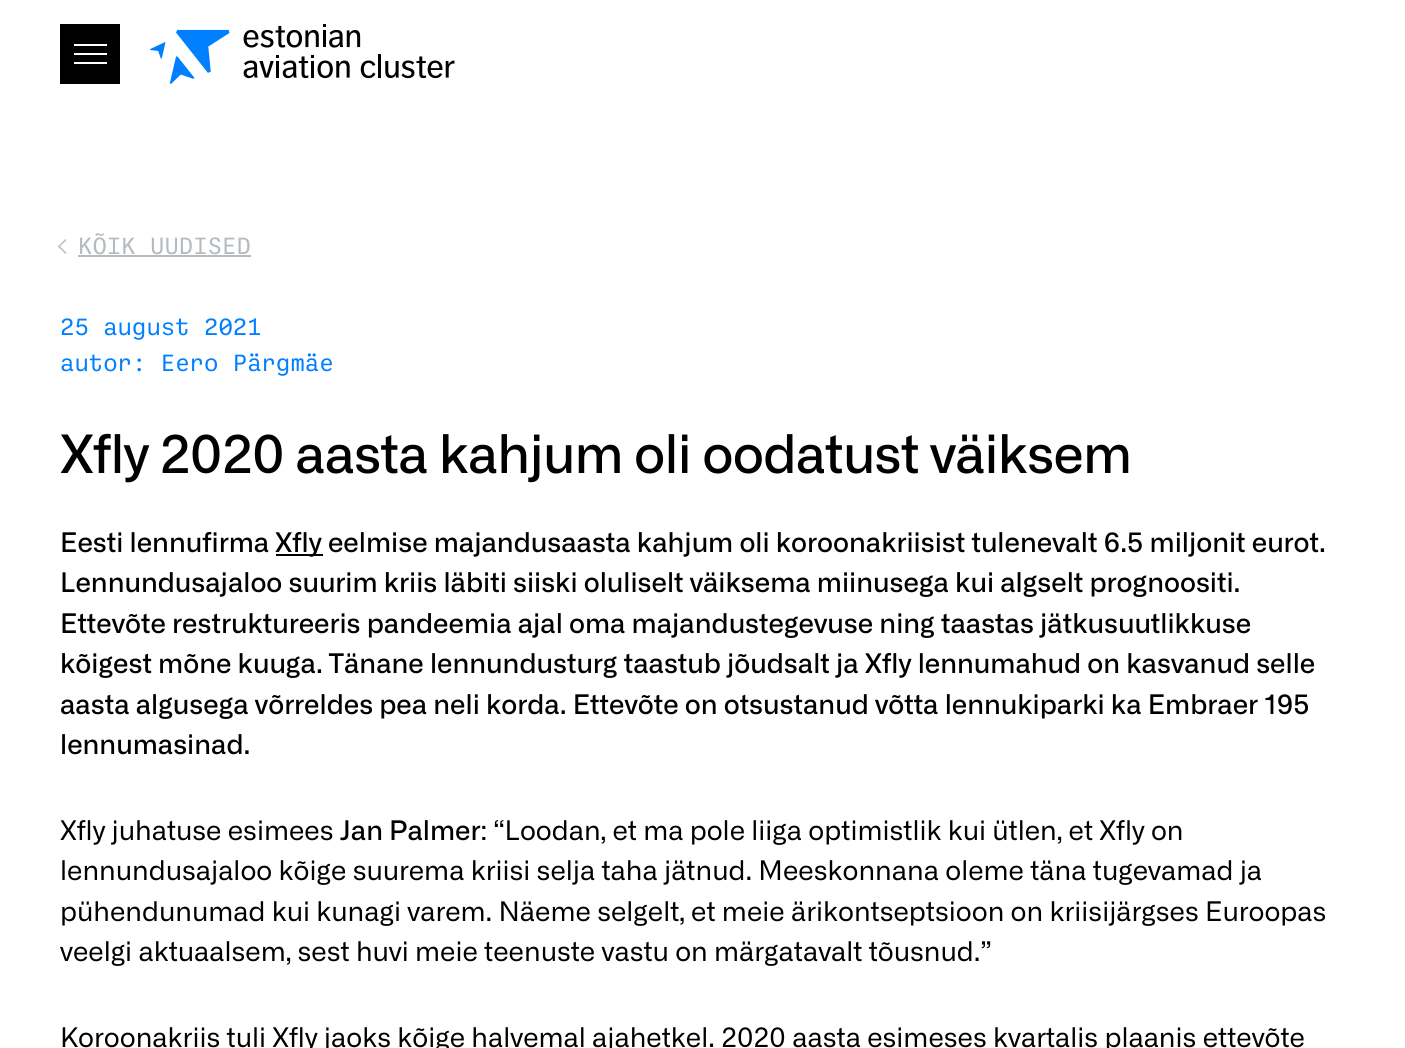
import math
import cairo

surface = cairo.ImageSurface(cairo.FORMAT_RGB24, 1405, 1048)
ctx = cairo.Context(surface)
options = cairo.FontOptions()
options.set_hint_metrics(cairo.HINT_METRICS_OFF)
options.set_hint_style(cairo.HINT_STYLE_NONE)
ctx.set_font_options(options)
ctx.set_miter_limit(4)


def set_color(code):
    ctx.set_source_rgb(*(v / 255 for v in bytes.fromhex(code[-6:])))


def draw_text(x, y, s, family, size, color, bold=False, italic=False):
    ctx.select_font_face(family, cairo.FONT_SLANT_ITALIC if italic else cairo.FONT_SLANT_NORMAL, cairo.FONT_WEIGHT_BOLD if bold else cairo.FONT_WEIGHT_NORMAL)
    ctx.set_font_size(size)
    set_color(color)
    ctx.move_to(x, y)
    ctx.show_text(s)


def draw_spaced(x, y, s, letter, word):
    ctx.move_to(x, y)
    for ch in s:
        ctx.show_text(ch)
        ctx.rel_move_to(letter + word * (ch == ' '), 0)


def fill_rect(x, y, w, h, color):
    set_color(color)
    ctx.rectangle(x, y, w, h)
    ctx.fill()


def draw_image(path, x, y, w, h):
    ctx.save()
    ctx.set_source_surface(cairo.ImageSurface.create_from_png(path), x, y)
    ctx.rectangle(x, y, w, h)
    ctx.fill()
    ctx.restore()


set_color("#ffffff")
ctx.paint()
fill_rect(60, 24, 60, 60, "#000000")
fill_rect(74, 44, 33, 2, "#ffffff")
fill_rect(74, 53, 33, 2, "#ffffff")
fill_rect(74, 62, 33, 2, "#ffffff")
draw_image("assets/img1.png", 150, 24, 305, 60)
set_color("#b4babe")
ctx.new_path()
ctx.move_to(65.5, 254)
ctx.line_to(58, 246.5)
ctx.line_to(59, 245.5)
ctx.line_to(66.5, 253)
ctx.close_path()
ctx.fill()
ctx.new_path()
ctx.move_to(59, 247.5)
ctx.line_to(58, 246.5)
ctx.line_to(65.5, 239)
ctx.line_to(66.5, 240)
ctx.close_path()
ctx.fill()
draw_text(78, 254, "KÕIK UUDISED", "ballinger", 24, "#b4babe")
fill_rect(78, 255, 173, 2, "#b4babe")
draw_text(60, 335, "25 august 2021", "ballinger", 24, "#0080ff")
draw_text(60, 371, "autor: Eero Pärgmäe", "ballinger", 24, "#0080ff")
ctx.select_font_face("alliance")
ctx.set_font_size(52.8)
set_color("#000000")
draw_spaced(60, 473, "Xfly 2020 aasta kahjum oli oodatust väiksem", -0.75, 0)
draw_text(60, 552, "Eesti lennufirma", "alliance", 27, "#000000")
fill_rect(276, 554, 47, 2, "#000000")
draw_text(275, 552, "Xfly eelmise majandusaasta kahjum oli koroonakriisist tulenevalt 6.5 miljonit eurot.", "alliance", 27, "#000000")
draw_text(60, 592, "Lennundusajaloo suurim kriis läbiti siiski oluliselt väiksema miinusega kui algselt prognoositi.", "alliance", 27, "#000000")
draw_text(60, 633, "Ettevõte restruktureeris pandeemia ajal oma majandustegevuse ning taastas jätkusuutlikkuse", "alliance", 27, "#000000")
draw_text(60, 673, "kõigest mõne kuuga. Tänane lennundusturg taastub jõudsalt ja Xfly lennumahud on kasvanud selle", "alliance", 27, "#000000")
draw_text(60, 714, "aasta algusega võrreldes pea neli korda. Ettevõte on otsustanud võtta lennukiparki ka Embraer 195", "alliance", 27, "#000000")
draw_text(60, 754, "lennumasinad.", "alliance", 27, "#000000")
draw_text(60, 840, "Xfly juhatuse esimees", "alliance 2", 27, "#000000")
draw_text(340, 840, "Jan Palmer", "alliance", 27, "#000000")
draw_text(480, 840, ": “Loodan, et ma pole liiga optimistlik kui ütlen, et Xfly on", "alliance 2", 27, "#000000")
draw_text(60, 880, "lennundusajaloo kõige suurema kriisi selja taha jätnud. Meeskonnana oleme täna tugevamad ja", "alliance 2", 27, "#000000")
draw_text(60, 921, "pühendunumad kui kunagi varem. Näeme selgelt, et meie ärikontseptsioon on kriisijärgses Euroopas", "alliance 2", 27, "#000000")
draw_text(60, 961, "veelgi aktuaalsem, sest huvi meie teenuste vastu on märgatavalt tõusnud.”", "alliance 2", 27, "#000000")
draw_text(60, 1047, "Koroonakriis tuli Xfly jaoks kõige halvemal ajahetkel. 2020 aasta esimeses kvartalis plaanis ettevõte", "alliance 2", 27, "#000000")
surface.write_to_png("output.png")
